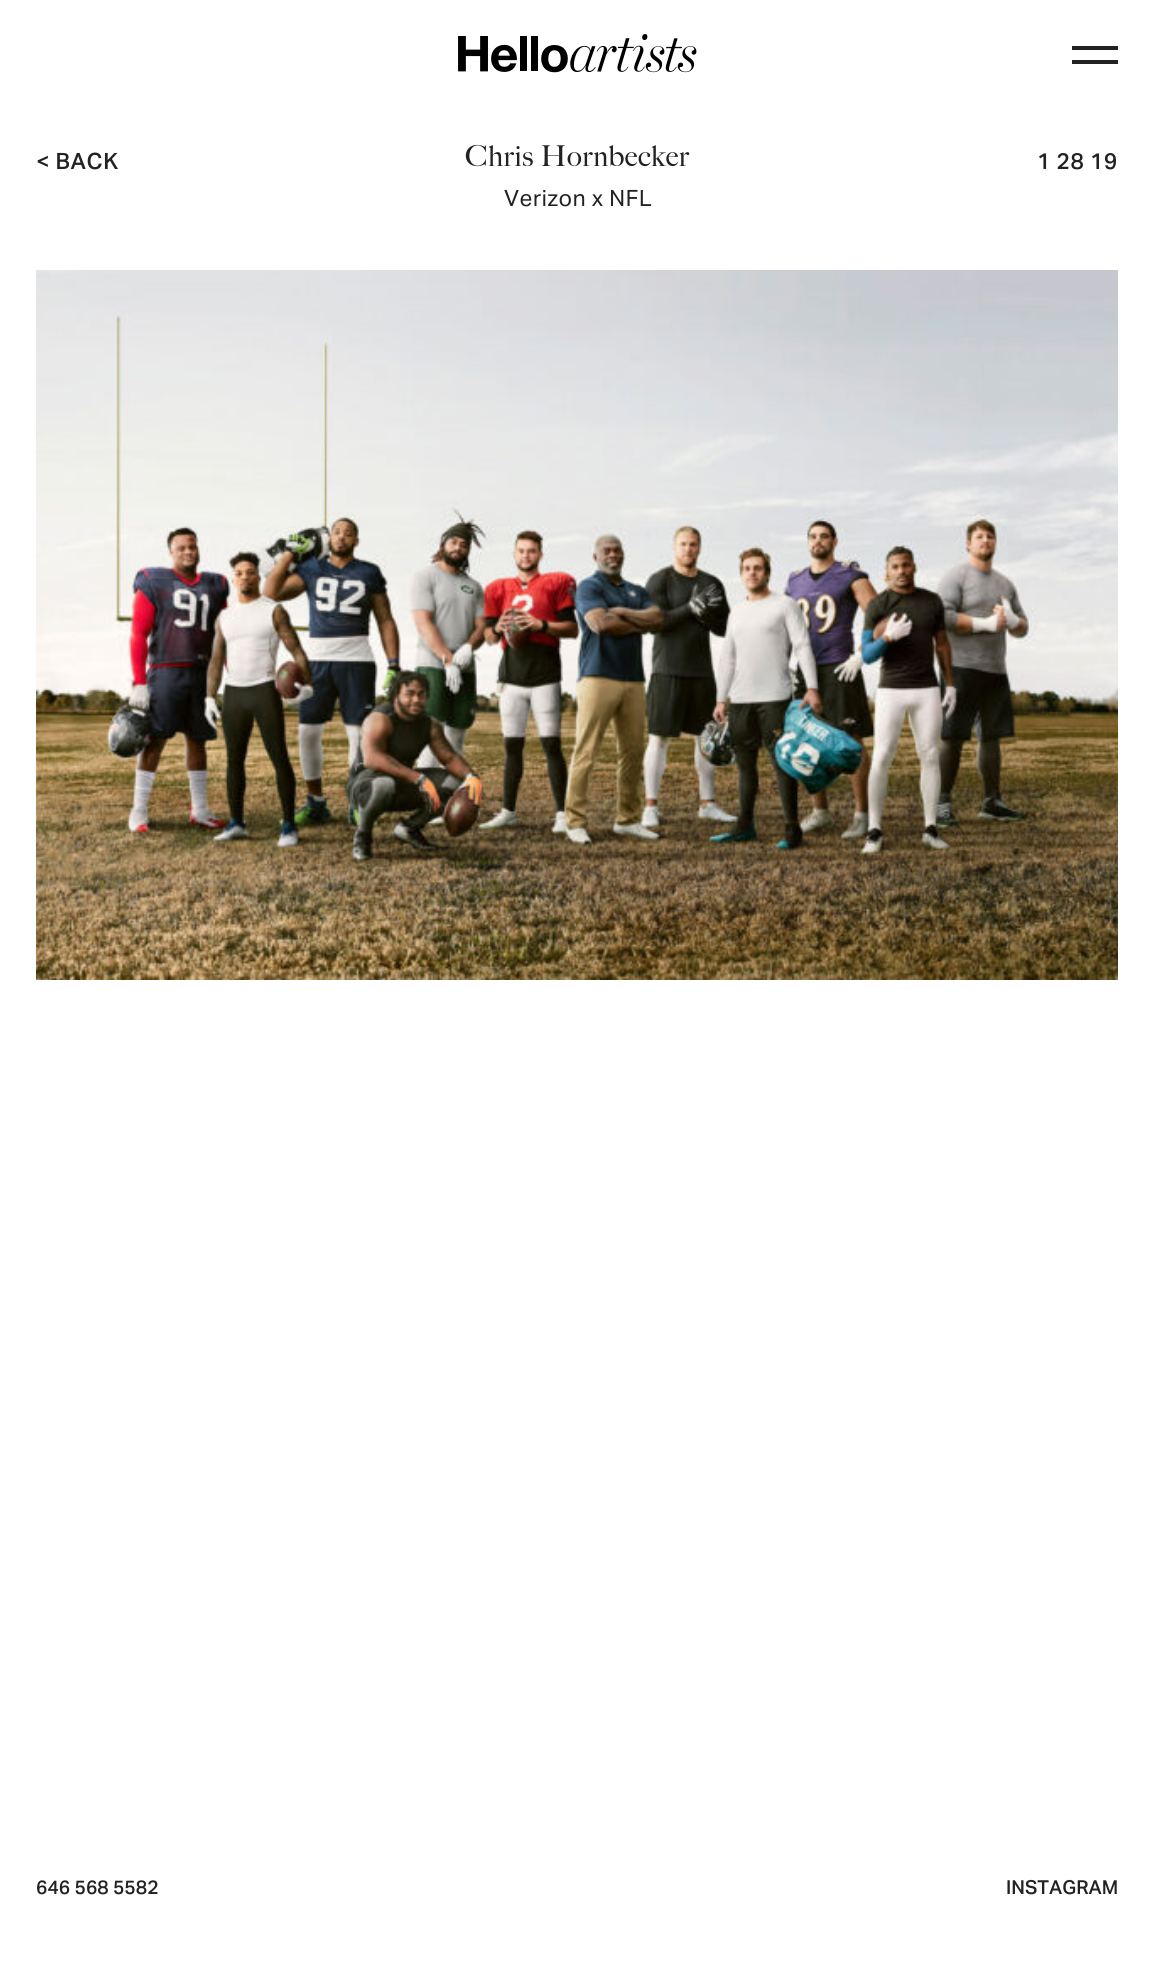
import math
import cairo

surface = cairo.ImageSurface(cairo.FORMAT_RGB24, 1153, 1962)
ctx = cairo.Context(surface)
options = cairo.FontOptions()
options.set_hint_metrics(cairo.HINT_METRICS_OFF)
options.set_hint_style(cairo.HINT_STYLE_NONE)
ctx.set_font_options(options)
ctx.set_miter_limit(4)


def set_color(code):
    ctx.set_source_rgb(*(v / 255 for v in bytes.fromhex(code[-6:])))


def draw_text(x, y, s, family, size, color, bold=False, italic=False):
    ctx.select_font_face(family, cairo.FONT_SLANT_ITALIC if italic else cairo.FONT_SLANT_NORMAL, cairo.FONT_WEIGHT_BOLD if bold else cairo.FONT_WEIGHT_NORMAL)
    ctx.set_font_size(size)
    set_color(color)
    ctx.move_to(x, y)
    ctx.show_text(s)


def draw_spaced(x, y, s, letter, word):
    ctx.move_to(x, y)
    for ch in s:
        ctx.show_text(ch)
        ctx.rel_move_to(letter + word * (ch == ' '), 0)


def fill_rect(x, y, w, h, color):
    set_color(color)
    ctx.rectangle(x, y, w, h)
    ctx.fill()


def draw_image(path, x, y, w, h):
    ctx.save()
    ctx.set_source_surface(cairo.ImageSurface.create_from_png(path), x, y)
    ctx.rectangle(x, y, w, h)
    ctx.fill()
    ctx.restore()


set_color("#ffffff")
ctx.paint()
draw_image("assets/img1.png", 458, 34, 239, 39)
fill_rect(1072, 46, 46, 4, "#222222")
fill_rect(1072, 60, 46, 4, "#222222")
ctx.select_font_face("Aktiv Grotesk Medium")
ctx.set_font_size(22.5)
draw_spaced(36, 169, "< BACK", 0.6, 0)
ctx.select_font_face("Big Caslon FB")
ctx.set_font_size(28.75)
draw_spaced(465, 166, "Chris Hornbecker", 0.6, 0)
ctx.select_font_face("Aktiv Grotesk")
ctx.set_font_size(22.5)
draw_spaced(504, 206, "Verizon x NFL", 0.6, 0)
ctx.select_font_face("Aktiv Grotesk Medium")
draw_spaced(1037, 169, "1 28 19", 0.6, 0)
draw_image("assets/img2.png", 36, 270, 1082, 710)
draw_text(36, 1894, "646 568 5582", "Aktiv Grotesk Medium", 19.25, "#222222")
draw_text(1006, 1894, "INSTAGRAM", "Aktiv Grotesk Medium", 19.25, "#222222")
surface.write_to_png("output.png")
